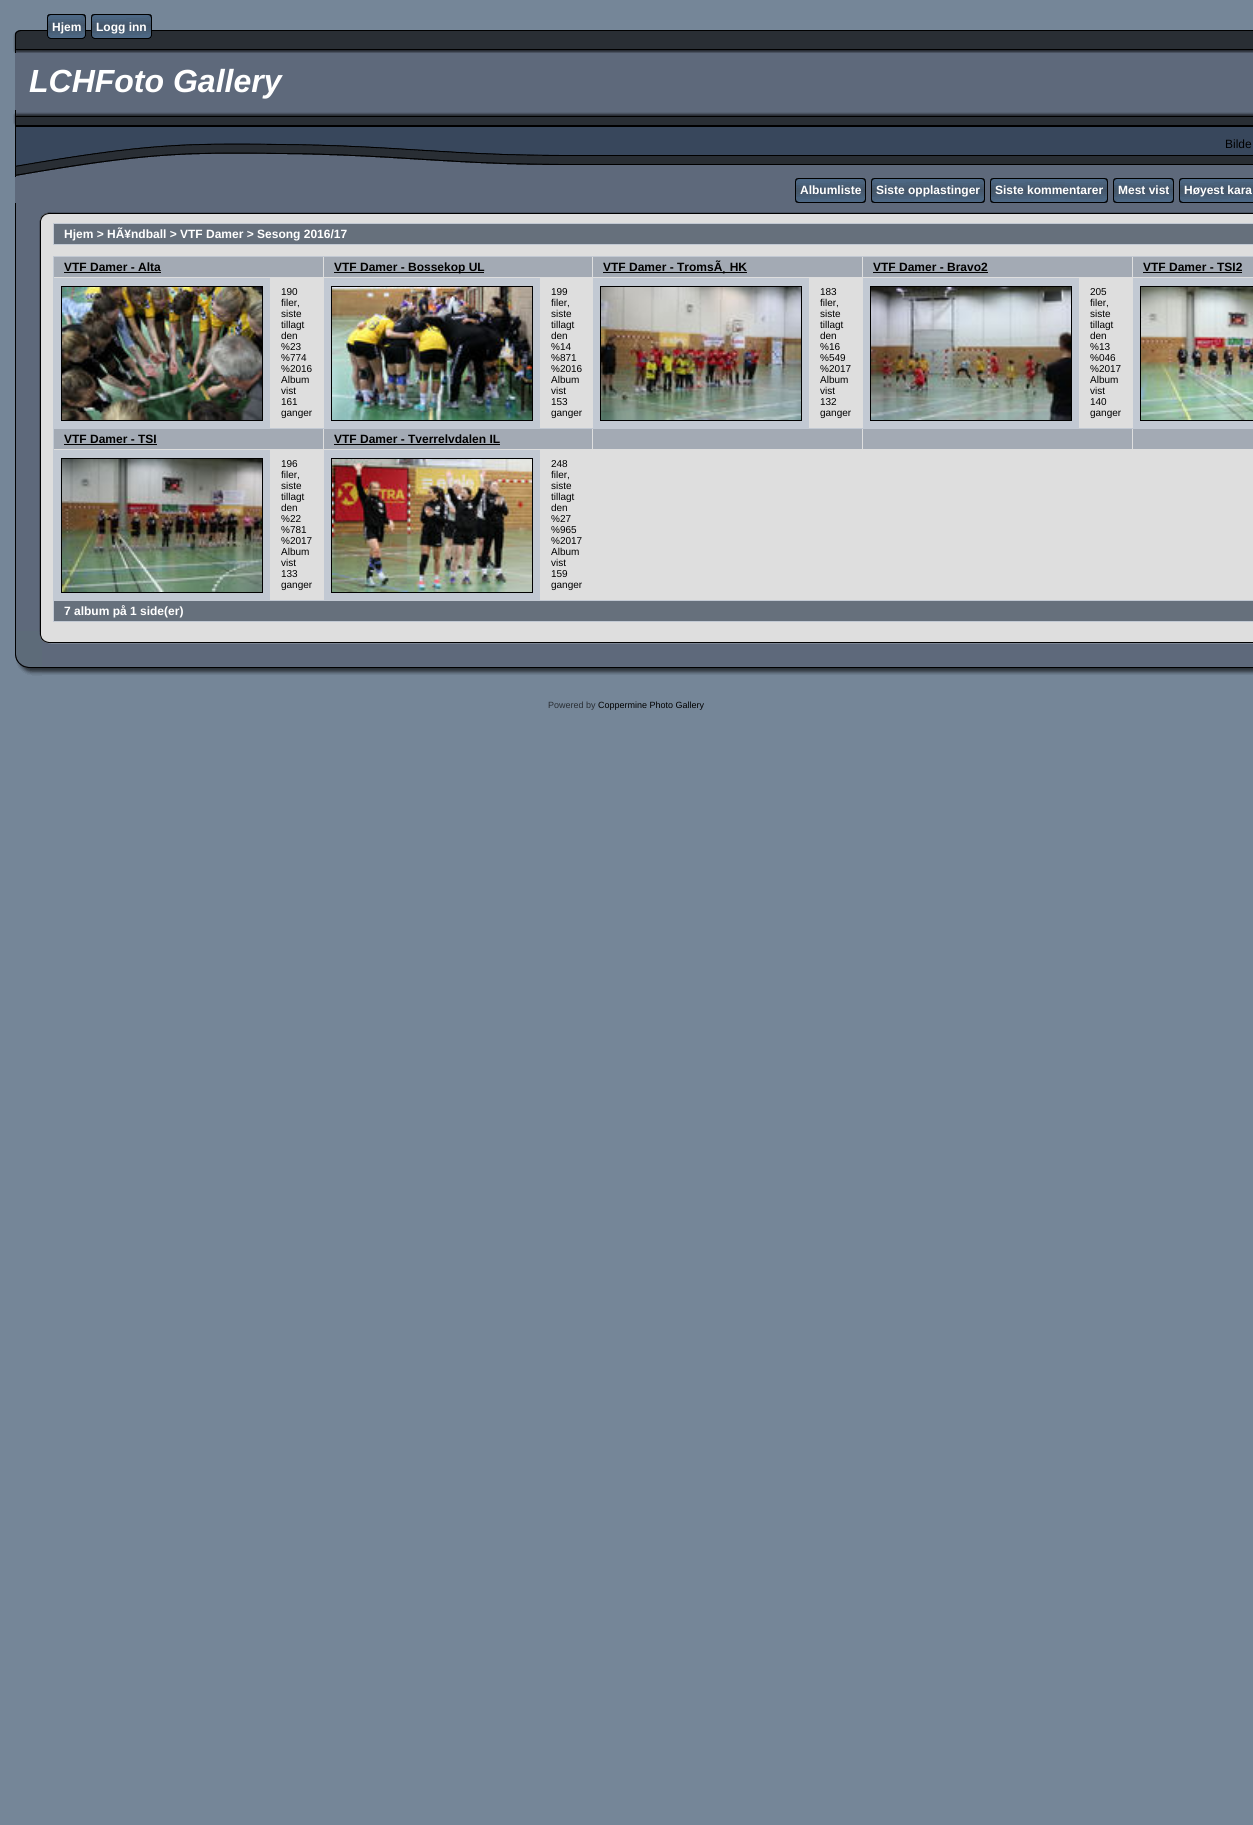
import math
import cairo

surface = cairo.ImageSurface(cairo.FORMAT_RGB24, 1253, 1825)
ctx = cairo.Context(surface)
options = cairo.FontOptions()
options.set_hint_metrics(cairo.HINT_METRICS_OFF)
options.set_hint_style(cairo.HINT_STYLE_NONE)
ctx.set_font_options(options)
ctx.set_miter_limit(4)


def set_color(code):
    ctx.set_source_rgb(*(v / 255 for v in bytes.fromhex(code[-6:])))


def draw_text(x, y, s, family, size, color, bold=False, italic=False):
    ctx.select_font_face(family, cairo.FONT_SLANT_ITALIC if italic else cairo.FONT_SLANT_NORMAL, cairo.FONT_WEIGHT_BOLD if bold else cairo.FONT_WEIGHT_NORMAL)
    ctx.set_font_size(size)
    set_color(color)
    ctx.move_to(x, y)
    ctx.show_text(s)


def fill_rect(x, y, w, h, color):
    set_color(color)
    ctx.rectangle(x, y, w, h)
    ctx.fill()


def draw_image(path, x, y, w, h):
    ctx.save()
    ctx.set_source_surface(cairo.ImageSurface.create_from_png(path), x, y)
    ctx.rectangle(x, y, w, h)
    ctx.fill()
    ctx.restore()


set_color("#758698")
ctx.paint()
draw_image("assets/img1.png", 42, 30, 1211, 23)
draw_image("assets/img2.png", 47, 14, 5, 25)
draw_image("assets/img3.png", 52, 14, 29, 25)
draw_text(52, 31, "Hjem", "Liberation Sans", 12, "#ffffff", bold=True)
draw_image("assets/img4.png", 81, 14, 5, 25)
draw_image("assets/img2.png", 91, 14, 5, 25)
draw_image("assets/img5.png", 96, 14, 51, 25)
draw_text(96, 31, "Logg inn", "Liberation Sans", 12, "#ffffff", bold=True)
draw_image("assets/img4.png", 147, 14, 5, 25)
draw_image("assets/img6.png", 13, 30, 29, 23)
fill_rect(15, 53, 1238, 57, "#5e697b")
draw_text(29, 92, "LCHFoto Gallery", "Liberation Sans", 32, "#ffffff", bold=True, italic=True)
draw_image("assets/img7.png", 13, 110, 547, 67)
draw_image("assets/img8.png", 560, 110, 693, 67)
draw_text(1225, 148, "Bilde", "Liberation Sans", 12, "#000000")
fill_rect(15, 177, 1238, 26, "#5e697b")
draw_image("assets/img9.png", 795, 178, 5, 25)
draw_image("assets/img10.png", 800, 178, 61, 25)
draw_text(800, 194, "Albumliste", "Liberation Sans", 12, "#ffffff", bold=True)
draw_image("assets/img11.png", 861, 178, 5, 25)
draw_image("assets/img9.png", 871, 178, 5, 25)
draw_image("assets/img12.png", 876, 178, 104, 25)
draw_text(876, 194, "Siste opplastinger", "Liberation Sans", 12, "#ffffff", bold=True)
draw_image("assets/img11.png", 980, 178, 5, 25)
draw_image("assets/img9.png", 990, 178, 5, 25)
draw_image("assets/img13.png", 995, 178, 108, 25)
draw_text(995, 194, "Siste kommentarer", "Liberation Sans", 12, "#ffffff", bold=True)
draw_image("assets/img11.png", 1103, 178, 5, 25)
draw_image("assets/img9.png", 1113, 178, 5, 25)
draw_image("assets/img14.png", 1118, 178, 51, 25)
draw_text(1118, 194, "Mest vist", "Liberation Sans", 12, "#ffffff", bold=True)
draw_image("assets/img11.png", 1169, 178, 5, 25)
draw_image("assets/img9.png", 1179, 178, 5, 25)
draw_image("assets/img15.png", 1184, 178, 69, 25)
draw_text(1184, 194, "Høyest kara", "Liberation Sans", 12, "#ffffff", bold=True)
draw_image("assets/img16.png", 15, 203, 27, 18)
draw_image("assets/img17.png", 42, 203, 14, 18)
draw_image("assets/img18.png", 56, 203, 1197, 18)
draw_image("assets/img19.png", 15, 221, 27, 410)
fill_rect(42, 221, 1211, 410, "#dedede")
fill_rect(53, 223, 1200, 22, "#c2c9d3")
fill_rect(54, 224, 1199, 20, "#66707c")
draw_text(64, 238, "Hjem > HÃ¥ndball > VTF Damer > Sesong 2016/17", "Liberation Sans", 12, "#ffffff", bold=True)
fill_rect(53, 256, 1200, 366, "#c2c9d3")
fill_rect(54, 257, 1199, 171, "#dedede")
fill_rect(54, 257, 269, 20, "#a3aab4")
draw_text(64, 271, "VTF Damer - Alta", "Liberation Sans", 12, "#000000", bold=True)
fill_rect(64, 272, 97, 1, "#000000")
fill_rect(54, 278, 216, 150, "#c2c9d3")
ctx.rectangle(61.5, 286.5, 201, 134)
set_color("#000000")
ctx.set_line_width(1)
ctx.stroke()
draw_image("assets/img20.png", 62, 287, 200, 133)
draw_text(281, 295, "190", "Liberation Sans", 10, "#000000")
draw_text(281, 306, "filer,", "Liberation Sans", 10, "#000000")
draw_text(281, 317, "siste", "Liberation Sans", 10, "#000000")
draw_text(281, 328, "tillagt", "Liberation Sans", 10, "#000000")
draw_text(281, 339, "den", "Liberation Sans", 10, "#000000")
draw_text(281, 350, "%23", "Liberation Sans", 10, "#000000")
draw_text(281, 361, "%774", "Liberation Sans", 10, "#000000")
draw_text(281, 372, "%2016", "Liberation Sans", 10, "#000000")
draw_text(281, 383, "Album", "Liberation Sans", 10, "#000000")
draw_text(281, 394, "vist", "Liberation Sans", 10, "#000000")
draw_text(281, 405, "161", "Liberation Sans", 10, "#000000")
draw_text(281, 416, "ganger", "Liberation Sans", 10, "#000000")
fill_rect(324, 257, 268, 20, "#a3aab4")
fill_rect(334, 272, 150, 1, "#000000")
draw_text(334, 271, "VTF Damer - Bossekop UL", "Liberation Sans", 12, "#000000", bold=True)
fill_rect(324, 278, 216, 150, "#c2c9d3")
ctx.rectangle(331.5, 286.5, 201, 134)
set_color("#000000")
ctx.stroke()
draw_image("assets/img21.png", 332, 287, 200, 133)
draw_text(551, 295, "199", "Liberation Sans", 10, "#000000")
draw_text(551, 306, "filer,", "Liberation Sans", 10, "#000000")
draw_text(551, 317, "siste", "Liberation Sans", 10, "#000000")
draw_text(551, 328, "tillagt", "Liberation Sans", 10, "#000000")
draw_text(551, 339, "den", "Liberation Sans", 10, "#000000")
draw_text(551, 350, "%14", "Liberation Sans", 10, "#000000")
draw_text(551, 361, "%871", "Liberation Sans", 10, "#000000")
draw_text(551, 372, "%2016", "Liberation Sans", 10, "#000000")
draw_text(551, 383, "Album", "Liberation Sans", 10, "#000000")
draw_text(551, 394, "vist", "Liberation Sans", 10, "#000000")
draw_text(551, 405, "153", "Liberation Sans", 10, "#000000")
draw_text(551, 416, "ganger", "Liberation Sans", 10, "#000000")
fill_rect(593, 257, 269, 20, "#a3aab4")
fill_rect(603, 272, 144, 1, "#000000")
draw_text(603, 271, "VTF Damer - TromsÃ¸ HK", "Liberation Sans", 12, "#000000", bold=True)
fill_rect(593, 278, 216, 150, "#c2c9d3")
ctx.rectangle(600.5, 286.5, 201, 134)
set_color("#000000")
ctx.stroke()
draw_image("assets/img22.png", 601, 287, 200, 133)
draw_text(820, 295, "183", "Liberation Sans", 10, "#000000")
draw_text(820, 306, "filer,", "Liberation Sans", 10, "#000000")
draw_text(820, 317, "siste", "Liberation Sans", 10, "#000000")
draw_text(820, 328, "tillagt", "Liberation Sans", 10, "#000000")
draw_text(820, 339, "den", "Liberation Sans", 10, "#000000")
draw_text(820, 350, "%16", "Liberation Sans", 10, "#000000")
draw_text(820, 361, "%549", "Liberation Sans", 10, "#000000")
draw_text(820, 372, "%2017", "Liberation Sans", 10, "#000000")
draw_text(820, 383, "Album", "Liberation Sans", 10, "#000000")
draw_text(820, 394, "vist", "Liberation Sans", 10, "#000000")
draw_text(820, 405, "132", "Liberation Sans", 10, "#000000")
draw_text(820, 416, "ganger", "Liberation Sans", 10, "#000000")
fill_rect(863, 257, 269, 20, "#a3aab4")
draw_text(873, 271, "VTF Damer - Bravo2", "Liberation Sans", 12, "#000000", bold=True)
fill_rect(873, 272, 115, 1, "#000000")
fill_rect(863, 278, 216, 150, "#c2c9d3")
ctx.rectangle(870.5, 286.5, 201, 134)
set_color("#000000")
ctx.stroke()
draw_image("assets/img23.png", 871, 287, 200, 133)
draw_text(1090, 295, "205", "Liberation Sans", 10, "#000000")
draw_text(1090, 306, "filer,", "Liberation Sans", 10, "#000000")
draw_text(1090, 317, "siste", "Liberation Sans", 10, "#000000")
draw_text(1090, 328, "tillagt", "Liberation Sans", 10, "#000000")
draw_text(1090, 339, "den", "Liberation Sans", 10, "#000000")
draw_text(1090, 350, "%13", "Liberation Sans", 10, "#000000")
draw_text(1090, 361, "%046", "Liberation Sans", 10, "#000000")
draw_text(1090, 372, "%2017", "Liberation Sans", 10, "#000000")
draw_text(1090, 383, "Album", "Liberation Sans", 10, "#000000")
draw_text(1090, 394, "vist", "Liberation Sans", 10, "#000000")
draw_text(1090, 405, "140", "Liberation Sans", 10, "#000000")
draw_text(1090, 416, "ganger", "Liberation Sans", 10, "#000000")
fill_rect(1133, 257, 120, 20, "#a3aab4")
draw_text(1143, 271, "VTF Damer - TSI2", "Liberation Sans", 12, "#000000", bold=True)
fill_rect(1143, 272, 99, 1, "#000000")
fill_rect(1133, 278, 120, 150, "#c2c9d3")
ctx.rectangle(1140.5, 286.5, 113, 134)
set_color("#000000")
ctx.stroke()
draw_image("assets/img24.png", 1141, 287, 112, 133)
fill_rect(54, 429, 1199, 171, "#dedede")
fill_rect(54, 429, 269, 20, "#a3aab4")
draw_text(64, 443, "VTF Damer - TSI", "Liberation Sans", 12, "#000000", bold=True)
fill_rect(64, 444, 93, 1, "#000000")
fill_rect(54, 450, 216, 150, "#c2c9d3")
ctx.rectangle(61.5, 458.5, 201, 134)
set_color("#000000")
ctx.stroke()
draw_image("assets/img25.png", 62, 459, 200, 133)
draw_text(281, 467, "196", "Liberation Sans", 10, "#000000")
draw_text(281, 478, "filer,", "Liberation Sans", 10, "#000000")
draw_text(281, 489, "siste", "Liberation Sans", 10, "#000000")
draw_text(281, 500, "tillagt", "Liberation Sans", 10, "#000000")
draw_text(281, 511, "den", "Liberation Sans", 10, "#000000")
draw_text(281, 522, "%22", "Liberation Sans", 10, "#000000")
draw_text(281, 533, "%781", "Liberation Sans", 10, "#000000")
draw_text(281, 544, "%2017", "Liberation Sans", 10, "#000000")
draw_text(281, 555, "Album", "Liberation Sans", 10, "#000000")
draw_text(281, 566, "vist", "Liberation Sans", 10, "#000000")
draw_text(281, 577, "133", "Liberation Sans", 10, "#000000")
draw_text(281, 588, "ganger", "Liberation Sans", 10, "#000000")
fill_rect(324, 429, 268, 20, "#a3aab4")
draw_text(334, 443, "VTF Damer - Tverrelvdalen IL", "Liberation Sans", 12, "#000000", bold=True)
fill_rect(334, 444, 166, 1, "#000000")
fill_rect(324, 450, 216, 150, "#c2c9d3")
ctx.rectangle(331.5, 458.5, 201, 134)
set_color("#000000")
ctx.stroke()
draw_image("assets/img26.png", 332, 459, 200, 133)
draw_text(551, 467, "248", "Liberation Sans", 10, "#000000")
draw_text(551, 478, "filer,", "Liberation Sans", 10, "#000000")
draw_text(551, 489, "siste", "Liberation Sans", 10, "#000000")
draw_text(551, 500, "tillagt", "Liberation Sans", 10, "#000000")
draw_text(551, 511, "den", "Liberation Sans", 10, "#000000")
draw_text(551, 522, "%27", "Liberation Sans", 10, "#000000")
draw_text(551, 533, "%965", "Liberation Sans", 10, "#000000")
draw_text(551, 544, "%2017", "Liberation Sans", 10, "#000000")
draw_text(551, 555, "Album", "Liberation Sans", 10, "#000000")
draw_text(551, 566, "vist", "Liberation Sans", 10, "#000000")
draw_text(551, 577, "159", "Liberation Sans", 10, "#000000")
draw_text(551, 588, "ganger", "Liberation Sans", 10, "#000000")
fill_rect(593, 429, 269, 20, "#a3aab4")
fill_rect(863, 429, 269, 20, "#a3aab4")
fill_rect(1133, 429, 120, 20, "#a3aab4")
fill_rect(54, 601, 1199, 20, "#66707c")
draw_text(64, 615, "7 album på 1 side(er)", "Liberation Sans", 12, "#ffffff", bold=True)
draw_image("assets/img27.png", 15, 631, 27, 45)
draw_image("assets/img28.png", 42, 631, 208, 44)
draw_image("assets/img29.png", 250, 631, 956, 44)
draw_image("assets/img30.png", 1206, 631, 47, 44)
draw_text(548, 708, "Powered by", "Liberation Sans", 9, "#292e34")
draw_text(598, 708, "Coppermine Photo Gallery", "Liberation Sans", 9, "#000000")
surface.write_to_png("output.png")
